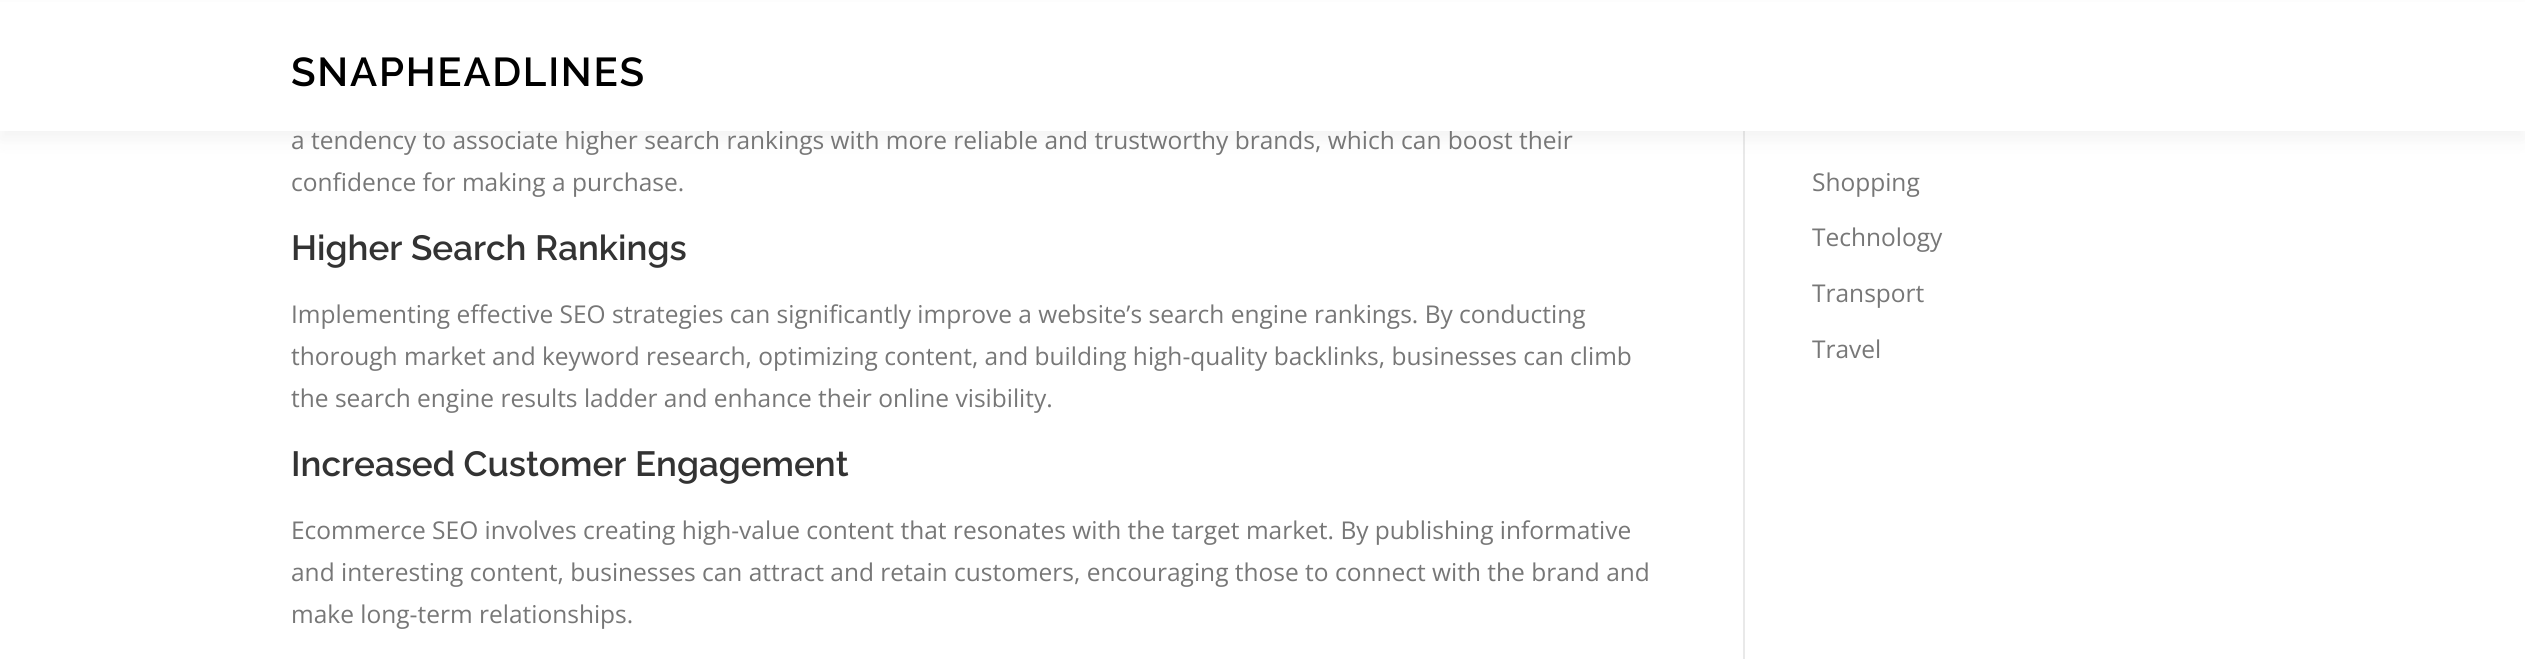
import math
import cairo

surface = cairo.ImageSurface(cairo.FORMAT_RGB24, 2525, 659)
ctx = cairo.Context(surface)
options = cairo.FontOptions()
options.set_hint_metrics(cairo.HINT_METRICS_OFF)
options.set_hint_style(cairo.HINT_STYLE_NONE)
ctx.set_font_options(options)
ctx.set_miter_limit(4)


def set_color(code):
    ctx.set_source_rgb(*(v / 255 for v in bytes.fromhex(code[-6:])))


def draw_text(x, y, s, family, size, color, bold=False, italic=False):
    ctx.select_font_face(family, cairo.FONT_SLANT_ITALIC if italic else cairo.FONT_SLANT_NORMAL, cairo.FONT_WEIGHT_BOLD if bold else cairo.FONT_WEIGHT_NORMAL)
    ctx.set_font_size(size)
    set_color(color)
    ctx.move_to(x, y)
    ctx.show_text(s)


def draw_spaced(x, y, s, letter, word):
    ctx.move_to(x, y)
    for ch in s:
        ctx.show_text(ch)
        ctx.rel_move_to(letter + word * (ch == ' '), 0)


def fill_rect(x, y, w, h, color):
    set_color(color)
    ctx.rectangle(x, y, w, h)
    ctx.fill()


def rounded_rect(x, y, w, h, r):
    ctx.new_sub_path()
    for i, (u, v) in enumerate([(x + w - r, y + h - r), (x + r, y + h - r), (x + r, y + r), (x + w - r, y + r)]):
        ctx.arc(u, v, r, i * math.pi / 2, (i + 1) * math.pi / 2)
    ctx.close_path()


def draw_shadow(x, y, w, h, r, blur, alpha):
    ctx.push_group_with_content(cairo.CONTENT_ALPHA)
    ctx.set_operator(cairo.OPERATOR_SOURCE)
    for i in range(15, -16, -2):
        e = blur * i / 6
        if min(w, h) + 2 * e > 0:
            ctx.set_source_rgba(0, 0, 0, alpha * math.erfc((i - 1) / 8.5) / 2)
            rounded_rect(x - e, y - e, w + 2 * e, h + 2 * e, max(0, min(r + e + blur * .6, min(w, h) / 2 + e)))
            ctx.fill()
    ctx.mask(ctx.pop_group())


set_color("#ffffff")
ctx.paint()
fill_rect(1743, 131, 2, 528, "#e9e9e9")
set_color("#323232")
draw_shadow(0, 9, 2525, 131, 0, 9, 0.06)
draw_text(291, 149, "a tendency to associate higher search rankings with more reliable and trustworthy brands, which can boost their", "Open Sans", 24.5, "#777777")
fill_rect(0, 2, 2525, 129, "#ffffff")
ctx.select_font_face("Raleway SemiBold")
ctx.set_font_size(40.25)
set_color("#000000")
draw_spaced(291, 86, "SNAPHEADLINES", 1.75, 0)
draw_text(291, 191, "confidence for making a purchase.", "Open Sans", 24.5, "#777777")
draw_text(291, 260, "Higher Search Rankings", "Raleway SemiBold", 35, "#333333")
draw_text(291, 323, "Implementing effective SEO strategies can significantly improve a website’s search engine rankings. By conducting", "Open Sans", 24.5, "#777777")
draw_text(291, 365, "thorough market and keyword research, optimizing content, and building high-quality backlinks, businesses can climb", "Open Sans", 24.5, "#777777")
draw_text(291, 407, "the search engine results ladder and enhance their online visibility.", "Open Sans", 24.5, "#777777")
draw_text(291, 476, "Increased Customer Engagement", "Raleway SemiBold", 35, "#333333")
draw_text(291, 539, "Ecommerce SEO involves creating high-value content that resonates with the target market. By publishing informative", "Open Sans", 24.5, "#777777")
draw_text(291, 581, "and interesting content, businesses can attract and retain customers, encouraging those to connect with the brand and", "Open Sans", 24.5, "#777777")
draw_text(291, 623, "make long-term relationships.", "Open Sans", 24.5, "#777777")
draw_text(1812, 191, "Shopping", "Open Sans", 24.5, "#777777")
draw_text(1812, 246, "Technology", "Open Sans", 24.5, "#777777")
draw_text(1812, 302, "Transport", "Open Sans", 24.5, "#777777")
draw_text(1812, 358, "Travel", "Open Sans", 24.5, "#777777")
surface.write_to_png("output.png")
